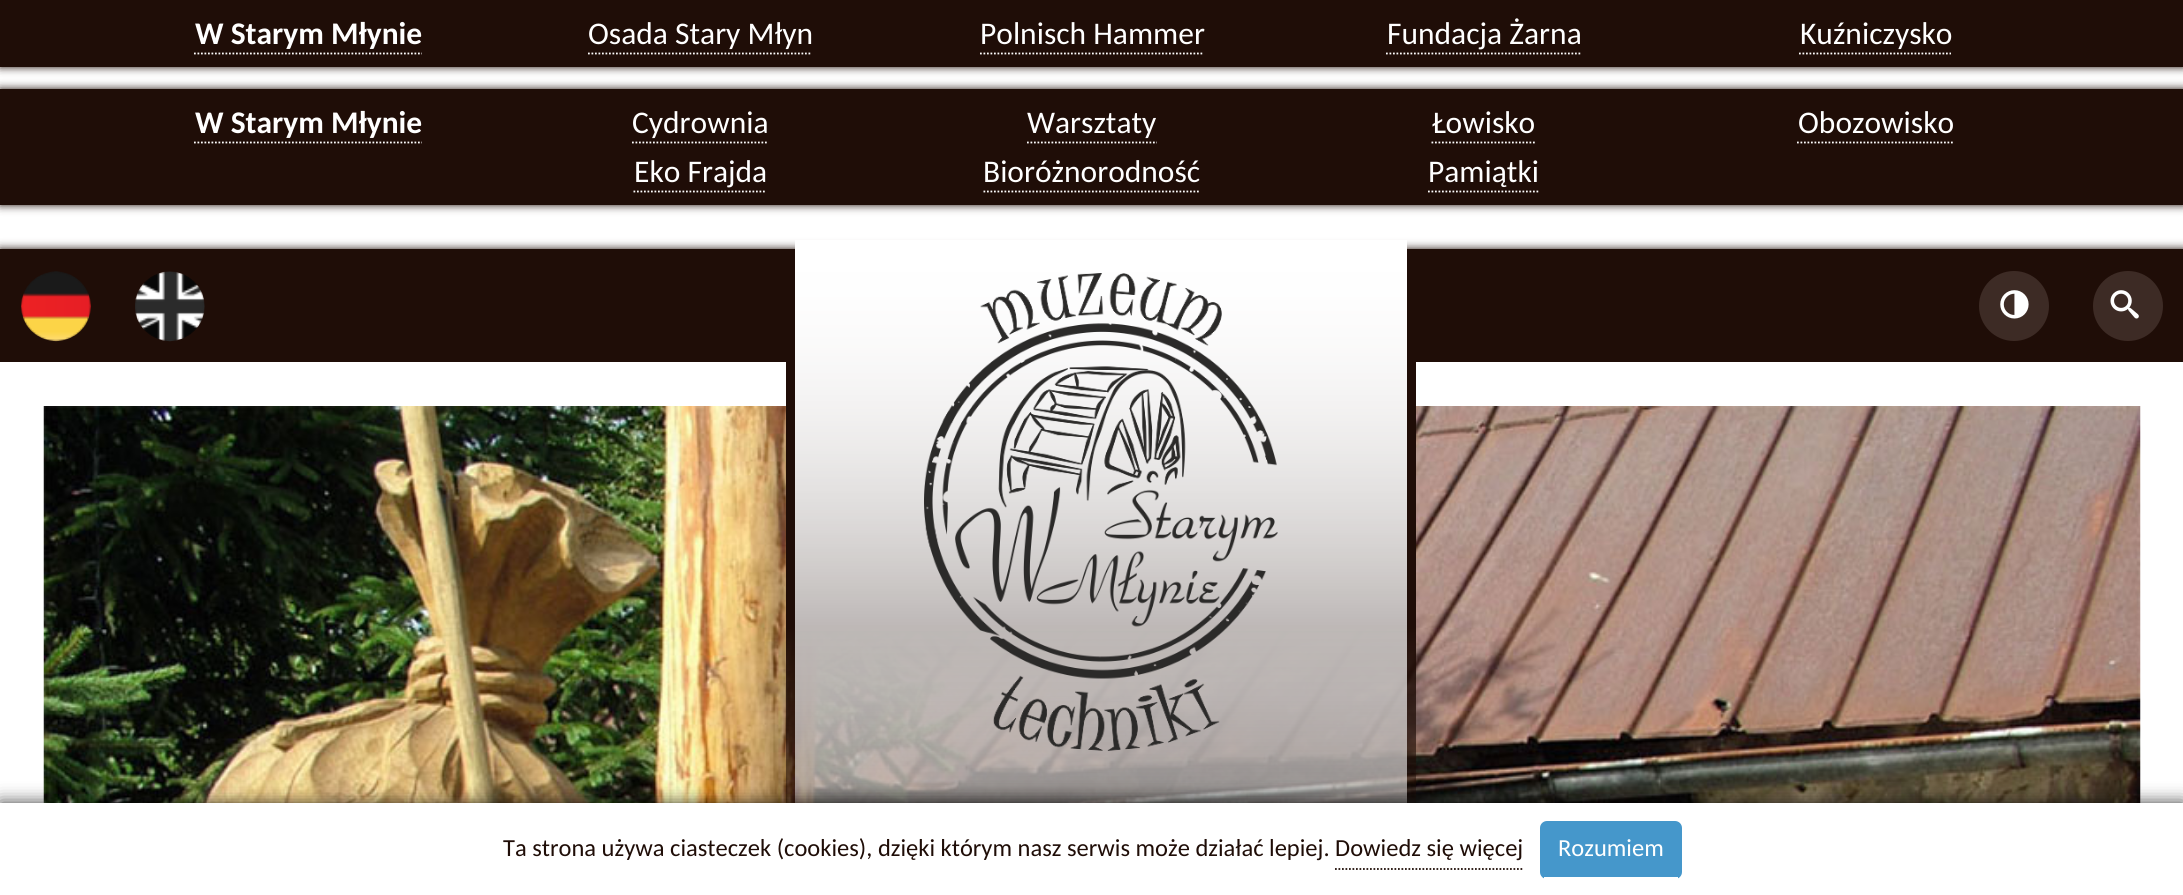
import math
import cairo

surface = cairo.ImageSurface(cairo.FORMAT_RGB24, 2183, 895)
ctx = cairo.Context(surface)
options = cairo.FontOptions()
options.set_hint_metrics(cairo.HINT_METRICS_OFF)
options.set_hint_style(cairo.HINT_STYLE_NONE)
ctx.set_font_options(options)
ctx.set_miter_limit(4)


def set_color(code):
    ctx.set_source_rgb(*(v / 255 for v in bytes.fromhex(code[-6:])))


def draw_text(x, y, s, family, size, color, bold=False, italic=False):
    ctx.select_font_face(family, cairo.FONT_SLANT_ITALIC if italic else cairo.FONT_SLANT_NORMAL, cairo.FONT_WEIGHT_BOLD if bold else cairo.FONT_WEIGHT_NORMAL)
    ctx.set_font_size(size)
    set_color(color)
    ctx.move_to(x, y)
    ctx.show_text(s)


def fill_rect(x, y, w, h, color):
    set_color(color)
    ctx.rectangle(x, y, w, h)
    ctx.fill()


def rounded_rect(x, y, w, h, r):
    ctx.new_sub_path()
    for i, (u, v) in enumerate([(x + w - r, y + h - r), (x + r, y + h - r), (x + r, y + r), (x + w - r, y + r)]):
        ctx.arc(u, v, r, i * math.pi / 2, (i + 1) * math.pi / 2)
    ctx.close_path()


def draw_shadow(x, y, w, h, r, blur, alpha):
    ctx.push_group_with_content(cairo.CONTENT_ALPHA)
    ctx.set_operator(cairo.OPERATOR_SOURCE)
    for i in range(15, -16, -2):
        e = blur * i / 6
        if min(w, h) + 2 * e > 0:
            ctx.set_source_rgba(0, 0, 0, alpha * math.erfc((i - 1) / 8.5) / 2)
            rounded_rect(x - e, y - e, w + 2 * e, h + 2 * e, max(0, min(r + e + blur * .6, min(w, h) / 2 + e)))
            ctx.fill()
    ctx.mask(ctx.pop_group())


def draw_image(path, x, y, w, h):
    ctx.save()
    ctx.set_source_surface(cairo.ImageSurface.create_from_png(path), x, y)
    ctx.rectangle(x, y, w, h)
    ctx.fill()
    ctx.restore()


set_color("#ffffff")
ctx.paint()
set_color("#1f0d07")
draw_shadow(0, 0, 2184, 67, 0, 4.5, 1)
fill_rect(0, 0, 2183, 67, "#1f0d07")
draw_text(195, 44, "W Starym Młynie", "Carlito", 31.5, "#ffffff", bold=True)
ctx.new_path()
ctx.move_to(194, 53.5)
ctx.line_to(422, 53.5)
ctx.set_line_width(1.8)
ctx.set_dash([1.75, 1.75])
ctx.stroke()
draw_text(588, 44, "Osada Stary Młyn", "Carlito", 31.5, "#ffffff")
ctx.new_path()
ctx.move_to(588, 53.5)
ctx.line_to(812, 53.5)
ctx.stroke()
draw_text(980, 44, "Polnisch Hammer", "Carlito", 31.5, "#ffffff")
ctx.new_path()
ctx.move_to(980, 53.5)
ctx.line_to(1204, 53.5)
ctx.stroke()
draw_text(1387, 44, "Fundacja Żarna", "Carlito", 31.5, "#ffffff")
ctx.new_path()
ctx.move_to(1386, 53.5)
ctx.line_to(1582, 53.5)
ctx.stroke()
draw_text(1800, 44, "Kuźniczysko", "Carlito", 31.5, "#ffffff")
ctx.new_path()
ctx.move_to(1799, 53.5)
ctx.line_to(1951, 53.5)
ctx.stroke()
set_color("#1f0d07")
draw_shadow(0, 89, 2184, 116, 0, 4.5, 1)
fill_rect(0, 89, 2183, 116, "#1f0d07")
draw_text(195, 133, "W Starym Młynie", "Carlito", 31.5, "#ffffff", bold=True)
ctx.new_path()
ctx.move_to(194, 142.5)
ctx.line_to(422, 142.5)
ctx.stroke()
draw_text(632, 133, "Cydrownia", "Carlito", 31.5, "#ffffff")
ctx.new_path()
ctx.move_to(632, 142.5)
ctx.line_to(768, 142.5)
ctx.stroke()
draw_text(1027, 133, "Warsztaty", "Carlito", 31.5, "#ffffff")
ctx.new_path()
ctx.move_to(1027, 142.5)
ctx.line_to(1157, 142.5)
ctx.stroke()
draw_text(1432, 133, "Łowisko", "Carlito", 31.5, "#ffffff")
ctx.new_path()
ctx.move_to(1431.5, 142.5)
ctx.line_to(1535, 142.5)
ctx.stroke()
draw_text(1798, 133, "Obozowisko", "Carlito", 31.5, "#ffffff")
ctx.new_path()
ctx.move_to(1797, 142.5)
ctx.line_to(1953, 142.5)
ctx.stroke()
draw_text(634, 182, "Eko Frajda", "Carlito", 31.5, "#ffffff")
ctx.new_path()
ctx.move_to(633.5, 191.5)
ctx.line_to(766.5, 191.5)
ctx.stroke()
draw_text(983, 182, "Bioróżnorodność", "Carlito", 31.5, "#ffffff")
ctx.new_path()
ctx.move_to(983.5, 191.5)
ctx.line_to(1200.5, 191.5)
ctx.stroke()
draw_text(1428, 182, "Pamiątki", "Carlito", 31.5, "#ffffff")
ctx.new_path()
ctx.move_to(1428, 191.5)
ctx.line_to(1540, 191.5)
ctx.stroke()
set_color("#1f0d07")
draw_shadow(0, 249, 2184, 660, 0, 4.5, 1)
fill_rect(0, 249, 2183, 113, "#1f0d07")
fill_rect(0, 362, 2183, 441, "#ffffff")
draw_image("assets/img6.png", 43, 406, 2098, 397)
gradient = cairo.LinearGradient(1101, 248, 1101, 852)
gradient.add_color_stop_rgba(0, 0.122, 0.051, 0.027, 1)
gradient.add_color_stop_rgba(0.63, 0.122, 0.051, 0.027, 1)
gradient.add_color_stop_rgba(0.75, 0.122, 0.051, 0.027, 0.8)
gradient.add_color_stop_rgba(0.89, 0.122, 0.051, 0.027, 0.5)
gradient.add_color_stop_rgba(1, 0.122, 0.051, 0.027, 0)
ctx.set_source(gradient)
ctx.rectangle(786, 362, 630, 441)
ctx.fill()
gradient = cairo.LinearGradient(1101, 240, 1101, 852)
gradient.add_color_stop_rgba(0, 1, 1, 1, 1)
gradient.add_color_stop_rgba(0.63, 1, 1, 1, 0.46)
gradient.add_color_stop_rgba(0.75, 1, 1, 1, 0.42)
gradient.add_color_stop_rgba(0.89, 1, 1, 1, 0.33)
gradient.add_color_stop_rgba(1, 1, 1, 1, 0)
ctx.set_source(gradient)
ctx.rectangle(795, 244, 612, 559)
ctx.fill()
ctx.rectangle(795, 240, 612, 563)
ctx.fill()
draw_image("assets/img1.png", 924, 273, 354, 478)
draw_image("assets/img2.png", 21, 271, 70, 71)
draw_image("assets/img3.png", 135, 271, 70, 71)
set_color("#3d2b25")
ctx.arc(2014, 306, 35, 0, 2 * math.pi)
ctx.fill()
draw_image("assets/img4.png", 2000, 290, 29, 29)
ctx.arc(2128, 306, 35, 0, 2 * math.pi)
ctx.fill()
draw_image("assets/img5.png", 2110, 290, 29, 29)
set_color("#000000")
draw_shadow(0, 803, 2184, 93, 0, 9, 0.75)
fill_rect(0, 803, 2183, 92, "#ffffff")
draw_text(503, 856, "Ta strona używa ciasteczek (cookies), dzięki którym nasz serwis może działać lepiej. Dowiedz się więcej", "Carlito", 24.5, "#1f0d07")
set_color("#4597cb")
rounded_rect(1540, 821, 142, 58, 7)
ctx.fill()
fill_rect(1544, 877, 134, 2, "#ffffff")
draw_text(1558, 856, "Rozumiem", "Carlito", 24.5, "#ffffff")
ctx.new_path()
ctx.move_to(1335, 869)
ctx.line_to(1522.5, 869)
set_color("#1f0d07")
ctx.stroke()
surface.write_to_png("output.png")
